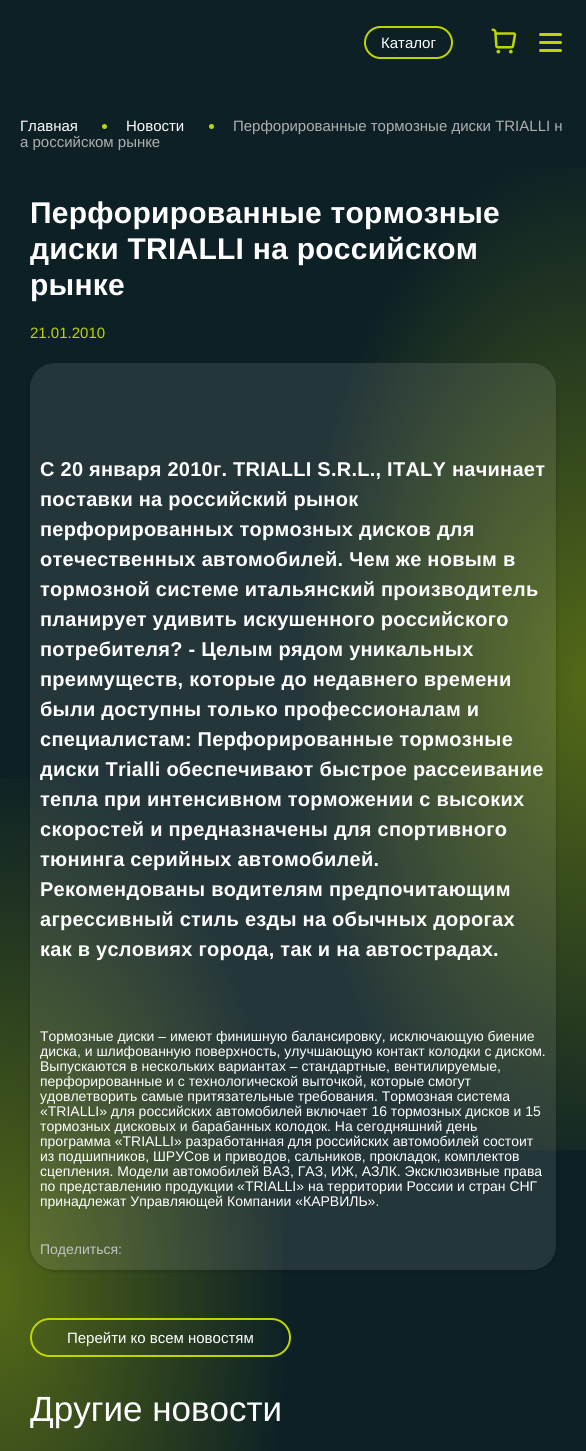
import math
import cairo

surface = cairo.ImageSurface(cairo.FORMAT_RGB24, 586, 1451)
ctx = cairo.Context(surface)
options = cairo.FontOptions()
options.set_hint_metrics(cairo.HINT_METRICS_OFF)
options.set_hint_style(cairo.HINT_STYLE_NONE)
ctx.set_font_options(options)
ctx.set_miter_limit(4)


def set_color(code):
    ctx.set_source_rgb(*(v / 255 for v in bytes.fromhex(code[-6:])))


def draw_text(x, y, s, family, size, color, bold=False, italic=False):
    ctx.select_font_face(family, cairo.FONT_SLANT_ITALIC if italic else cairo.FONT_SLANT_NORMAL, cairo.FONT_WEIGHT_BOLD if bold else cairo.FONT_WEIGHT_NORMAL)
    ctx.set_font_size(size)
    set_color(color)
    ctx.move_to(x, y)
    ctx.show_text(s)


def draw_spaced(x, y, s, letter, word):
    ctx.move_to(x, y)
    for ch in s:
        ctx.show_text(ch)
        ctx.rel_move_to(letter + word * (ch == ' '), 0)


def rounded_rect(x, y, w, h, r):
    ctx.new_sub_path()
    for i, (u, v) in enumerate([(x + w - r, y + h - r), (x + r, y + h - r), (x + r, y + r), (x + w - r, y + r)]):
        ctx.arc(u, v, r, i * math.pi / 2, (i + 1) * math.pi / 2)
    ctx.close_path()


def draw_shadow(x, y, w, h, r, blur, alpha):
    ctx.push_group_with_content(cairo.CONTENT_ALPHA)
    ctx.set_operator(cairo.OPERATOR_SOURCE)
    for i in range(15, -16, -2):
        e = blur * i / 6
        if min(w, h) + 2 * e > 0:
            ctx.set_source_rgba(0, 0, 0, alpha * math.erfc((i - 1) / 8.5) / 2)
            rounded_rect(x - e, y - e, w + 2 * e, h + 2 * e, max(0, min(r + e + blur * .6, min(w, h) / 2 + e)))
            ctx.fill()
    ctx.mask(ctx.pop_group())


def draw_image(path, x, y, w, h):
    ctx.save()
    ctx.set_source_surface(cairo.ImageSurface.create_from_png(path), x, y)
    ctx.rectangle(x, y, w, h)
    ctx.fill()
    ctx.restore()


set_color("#0d2026")
ctx.paint()
rounded_rect(365, 27, 87, 31, 15.5)
set_color("#bed600")
ctx.stroke()
draw_text(381, 48, "Каталог", "Liberation Sans", 15, "#ffffff")
draw_image("assets/img1.png", 491, 28, 26, 26)
set_color("#bed600")
rounded_rect(539, 33, 23, 3, 1.5)
ctx.fill()
rounded_rect(539, 41, 23, 3, 1.5)
ctx.fill()
rounded_rect(539, 49, 23, 3, 1.5)
ctx.fill()
draw_text(20, 131, "Главная", "Liberation Sans", 15, "#ffffff")
set_color("#bed600")
ctx.new_path()
ctx.arc(104.5, 126.5, 2.5, 0, 2 * math.pi)
ctx.fill()
draw_text(126, 131, "Новости", "Liberation Sans", 15, "#ffffff")
set_color("#bed600")
ctx.new_path()
ctx.arc(211.5, 126.5, 2.5, 0, 2 * math.pi)
ctx.fill()
draw_text(233, 131, "Перфорированные тормозные диски TRIALLI н", "Liberation Sans", 15, "#afafaf")
draw_text(20, 147, "а российском рынке", "Liberation Sans", 15, "#afafaf")
gradient = cairo.RadialGradient(0, 0, 0, 0, 0, 1)
gradient.set_matrix(cairo.Matrix(1 / 293, 0, 0, 1 / 531, -1 * 586 / 293, -1 * 681 / 531))
gradient.add_color_stop_rgba(0, 0.329, 0.412, 0.09, 1)
gradient.add_color_stop_rgba(1, 0.051, 0.125, 0.149, 1)
ctx.set_source(gradient)
ctx.rectangle(303, 167, 283, 983)
ctx.fill()
ctx.select_font_face("Liberation Sans", cairo.FONT_SLANT_NORMAL, cairo.FONT_WEIGHT_BOLD)
ctx.set_font_size(30)
set_color("#ffffff")
draw_spaced(30, 223, "Перфорированные тормозные", 0.25, 0)
draw_spaced(30, 259, "диски TRIALLI на российском", 0.25, 0)
draw_spaced(30, 295, "рынке", 0.25, 0)
draw_text(30, 338, "21.01.2010", "Liberation Sans", 15, "#bed600")
gradient = cairo.RadialGradient(0, 0, 0, 0, 0, 1)
gradient.set_matrix(cairo.Matrix(1 / 293, 0, 0, 1 / 531, -1 * 0 / 293, -1 * 1291 / 531))
gradient.add_color_stop_rgba(0, 0.329, 0.412, 0.09, 1)
gradient.add_color_stop_rgba(1, 0.051, 0.125, 0.149, 1)
ctx.set_source(gradient)
ctx.rectangle(0, 777, 283, 674)
ctx.fill()
ctx.save()
ctx.set_fill_rule(cairo.FILL_RULE_EVEN_ODD)
ctx.new_path()
ctx.move_to(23, 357)
ctx.line_to(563, 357)
ctx.line_to(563, 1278)
ctx.line_to(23, 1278)
ctx.close_path()
ctx.move_to(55, 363)
ctx.line_to(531, 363)
ctx.curve_to(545, 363, 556, 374, 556, 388)
ctx.line_to(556, 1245)
ctx.curve_to(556, 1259, 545, 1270, 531, 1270)
ctx.line_to(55, 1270)
ctx.curve_to(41, 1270, 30, 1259, 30, 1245)
ctx.line_to(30, 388)
ctx.curve_to(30, 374, 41, 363, 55, 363)
ctx.close_path()
ctx.clip()
set_color("#000000")
draw_shadow(30, 364, 526, 907, 25, 2, 0.25)
ctx.restore()
ctx.set_source_rgba(1, 1, 1, 0.1)
rounded_rect(30, 363, 526, 907, 25)
ctx.fill()
ctx.select_font_face("Liberation Sans", cairo.FONT_SLANT_NORMAL, cairo.FONT_WEIGHT_BOLD)
ctx.set_font_size(20)
set_color("#ffffff")
draw_spaced(40, 476, "С 20 января 2010г. TRIALLI S.R.L., ITALY начинает", 0.25, 0)
draw_spaced(40, 506, "поставки на российский рынок", 0.25, 0)
draw_spaced(40, 536, "перфорированных тормозных дисков для", 0.25, 0)
draw_spaced(40, 566, "отечественных автомобилей. Чем же новым в", 0.25, 0)
draw_spaced(40, 596, "тормозной системе итальянский производитель", 0.25, 0)
draw_spaced(40, 626, "планирует удивить искушенного российского", 0.25, 0)
draw_spaced(40, 656, "потребителя? - Целым рядом уникальных", 0.25, 0)
draw_spaced(40, 686, "преимуществ, которые до недавнего времени", 0.25, 0)
draw_spaced(40, 716, "были доступны только профессионалам и", 0.25, 0)
draw_spaced(40, 746, "специалистам: Перфорированные тормозные", 0.25, 0)
draw_spaced(40, 776, "диски Trialli обеспечивают быстрое рассеивание", 0.25, 0)
draw_spaced(40, 806, "тепла при интенсивном торможении с высоких", 0.25, 0)
draw_spaced(40, 836, "скоростей и предназначены для спортивного", 0.25, 0)
draw_spaced(40, 866, "тюнинга серийных автомобилей.", 0.25, 0)
draw_spaced(40, 896, "Рекомендованы водителям предпочитающим", 0.25, 0)
draw_spaced(40, 926, "агрессивный стиль езды на обычных дорогах", 0.25, 0)
draw_spaced(40, 956, "как в условиях города, так и на автострадах.", 0.25, 0)
draw_text(40, 1041, "Тормозные диски – имеют финишную балансировку, исключающую биение", "Liberation Sans", 14, "#ffffff")
draw_text(40, 1056, "диска, и шлифованную поверхность, улучшающую контакт колодки с диском.", "Liberation Sans", 14, "#ffffff")
draw_text(40, 1071, "Выпускаются в нескольких вариантах – стандартные, вентилируемые,", "Liberation Sans", 14, "#ffffff")
draw_text(40, 1086, "перфорированные и с технологической выточкой, которые смогут", "Liberation Sans", 14, "#ffffff")
draw_text(40, 1101, "удовлетворить самые притязательные требования. Тормозная система", "Liberation Sans", 14, "#ffffff")
draw_text(40, 1116, "«TRIALLI» для российских автомобилей включает 16 тормозных дисков и 15", "Liberation Sans", 14, "#ffffff")
draw_text(40, 1131, "тормозных дисковых и барабанных колодок. На сегодняшний день", "Liberation Sans", 14, "#ffffff")
draw_text(40, 1146, "программа «TRIALLI» разработанная для российских автомобилей состоит", "Liberation Sans", 14, "#ffffff")
draw_text(40, 1161, "из подшипников, ШРУСов и приводов, сальников, прокладок, комплектов", "Liberation Sans", 14, "#ffffff")
draw_text(40, 1176, "сцепления. Модели автомобилей ВАЗ, ГАЗ, ИЖ, АЗЛК. Эксклюзивные права", "Liberation Sans", 14, "#ffffff")
draw_text(40, 1191, "по представлению продукции «TRIALLI» на территории России и стран СНГ", "Liberation Sans", 14, "#ffffff")
draw_text(40, 1206, "принадлежат Управляющей Компании «КАРВИЛЬ».", "Liberation Sans", 14, "#ffffff")
draw_text(40, 1254, "Поделиться:", "Liberation Sans", 14, "#c4c4c4")
rounded_rect(31, 1319, 259, 37, 18.5)
set_color("#bed600")
ctx.stroke()
draw_text(67, 1343, "Перейти ко всем новостям", "Liberation Sans", 15, "#ffffff")
draw_text(30, 1421, "Другие новости", "Liberation Sans", 35, "#ffffff")
surface.write_to_png("output.png")
